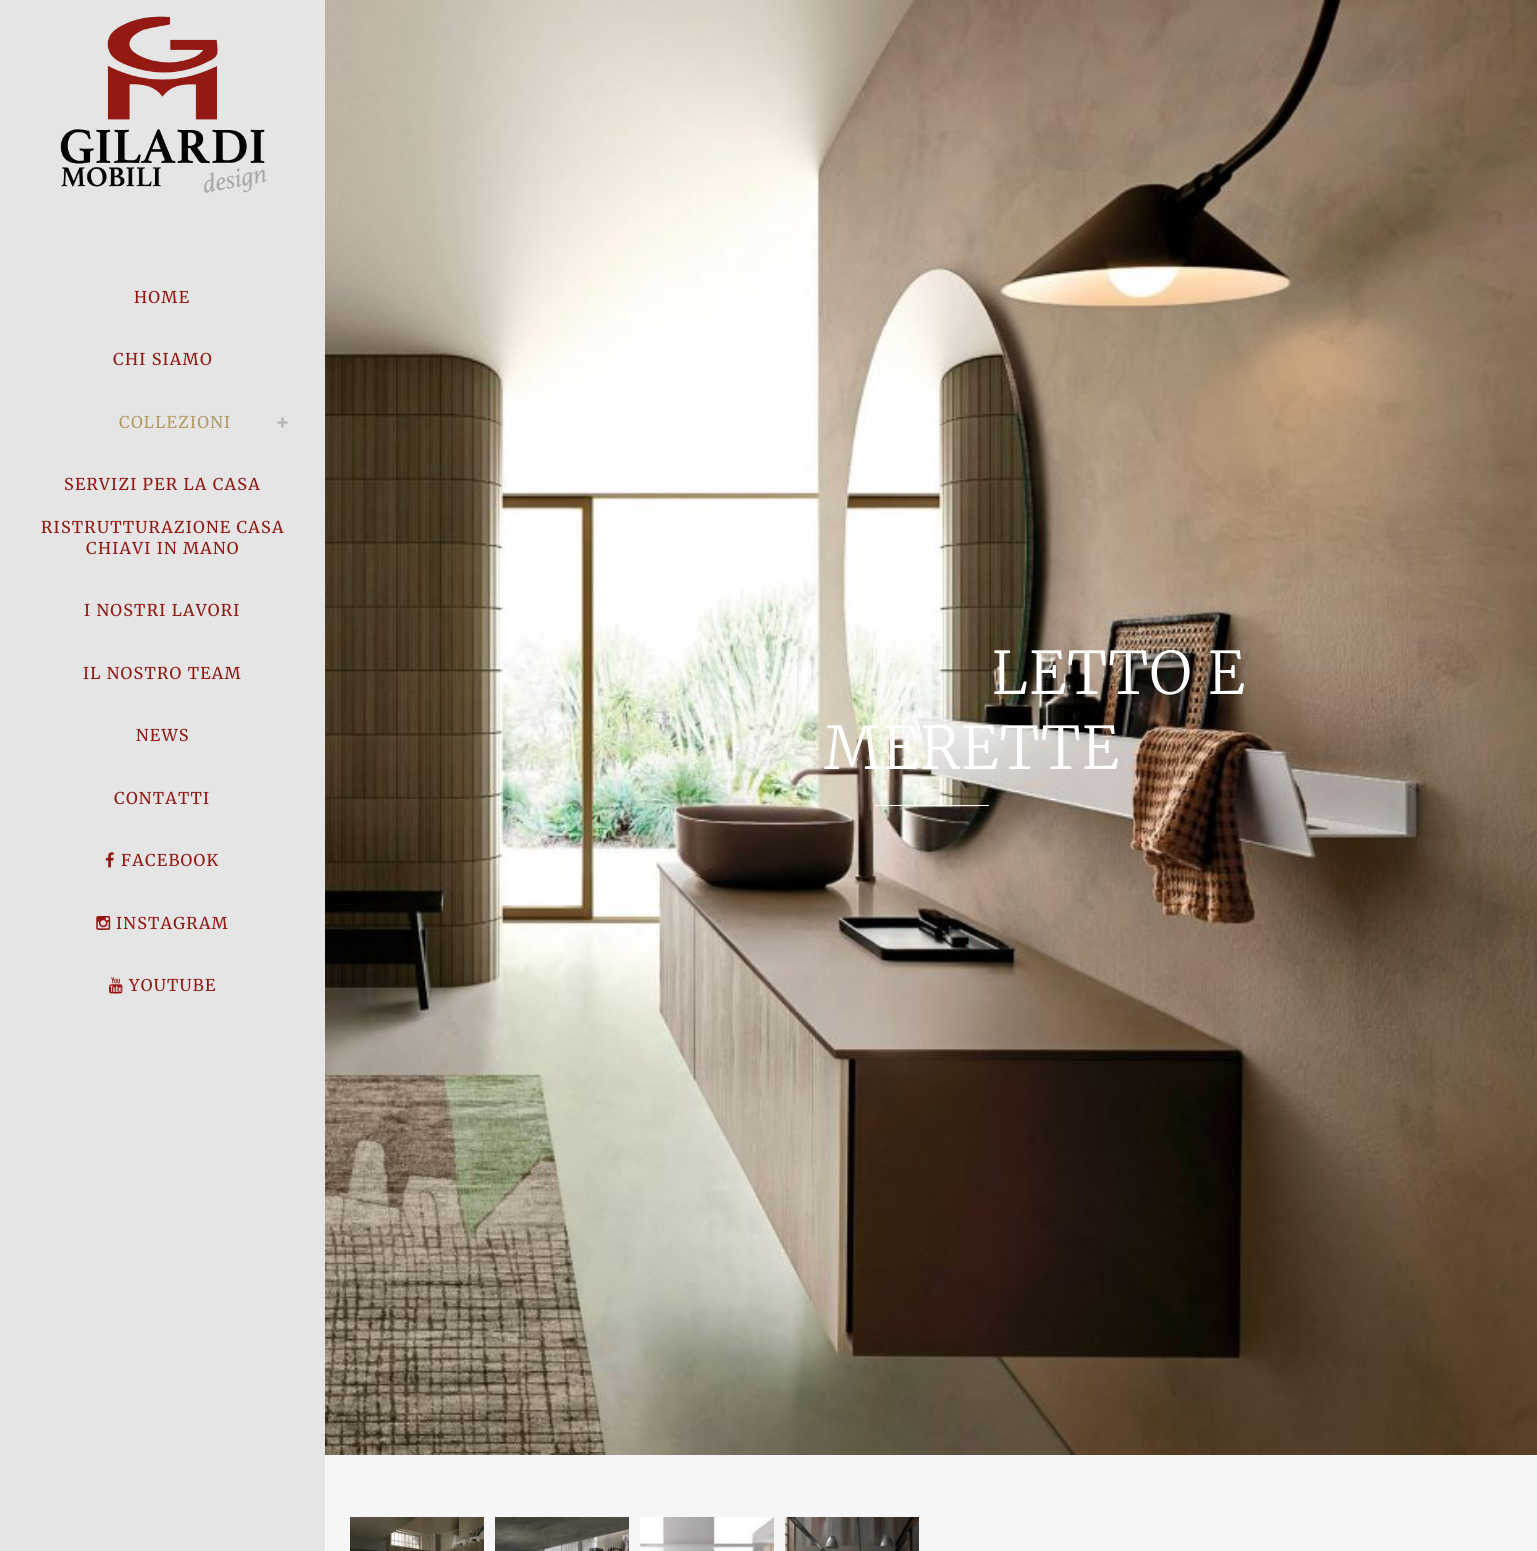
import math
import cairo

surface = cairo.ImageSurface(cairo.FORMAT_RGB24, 1537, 1551)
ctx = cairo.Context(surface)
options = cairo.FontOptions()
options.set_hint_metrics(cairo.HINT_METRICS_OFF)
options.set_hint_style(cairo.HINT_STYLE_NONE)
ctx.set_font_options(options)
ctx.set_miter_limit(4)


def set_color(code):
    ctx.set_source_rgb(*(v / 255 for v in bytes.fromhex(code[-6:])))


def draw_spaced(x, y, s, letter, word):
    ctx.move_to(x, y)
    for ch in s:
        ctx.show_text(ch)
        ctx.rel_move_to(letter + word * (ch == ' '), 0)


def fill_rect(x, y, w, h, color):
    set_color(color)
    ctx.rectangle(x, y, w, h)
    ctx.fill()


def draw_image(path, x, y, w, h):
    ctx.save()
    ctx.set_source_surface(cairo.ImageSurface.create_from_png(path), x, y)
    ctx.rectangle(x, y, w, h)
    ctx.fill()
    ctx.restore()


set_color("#f6f6f6")
ctx.paint()
fill_rect(0, 0, 325, 1551, "#e5e5e5")
draw_image("assets/img1.png", 60, 16, 207, 177)
ctx.select_font_face("Merriweather")
ctx.set_font_size(16.25)
set_color("#921813")
draw_spaced(134, 303, "HOME", 1.25, 0)
draw_spaced(113, 365, "CHI SIAMO", 1.25, 0)
set_color("#b39964")
draw_spaced(119, 428, "COLLEZIONI", 1.25, 0)
draw_image("assets/img2.png", 277, 417, 11, 11)
set_color("#921813")
draw_spaced(64, 490, "SERVIZI PER LA CASA", 1.25, 0)
draw_spaced(41, 533, "RISTRUTTURAZIONE CASA", 1.25, 0)
draw_spaced(86, 554, "CHIAVI IN MANO", 1.25, 0)
draw_spaced(84, 616, "I NOSTRI LAVORI", 1.25, 0)
draw_spaced(83, 679, "IL NOSTRO TEAM", 1.25, 0)
draw_spaced(136, 741, "NEWS", 1.25, 0)
draw_spaced(114, 804, "CONTATTI", 1.25, 0)
draw_image("assets/img3.png", 105, 852, 9, 16)
draw_spaced(121, 866, "FACEBOOK", 1.25, 0)
draw_image("assets/img4.png", 96, 916, 15, 14)
draw_spaced(116, 929, "INSTAGRAM", 1.25, 0)
draw_image("assets/img5.png", 109, 977, 14, 17)
draw_spaced(129, 991, "YOUTUBE", 1.25, 0)
draw_image("assets/img6.png", 325, 0, 1212, 1455)
ctx.select_font_face("Merriweather Light")
ctx.set_font_size(58.75)
set_color("#ffffff")
draw_spaced(992, 694, "LETTO E", 1.25, 0)
draw_spaced(824, 769, "MERETTE", 1.25, 0)
fill_rect(875, 805, 114, 1, "#ffffff")
draw_image("assets/img7.png", 350, 1517, 134, 34)
draw_image("assets/img8.png", 495, 1517, 134, 34)
draw_image("assets/img9.png", 640, 1517, 134, 34)
draw_image("assets/img10.png", 785, 1517, 134, 34)
surface.write_to_png("output.png")
